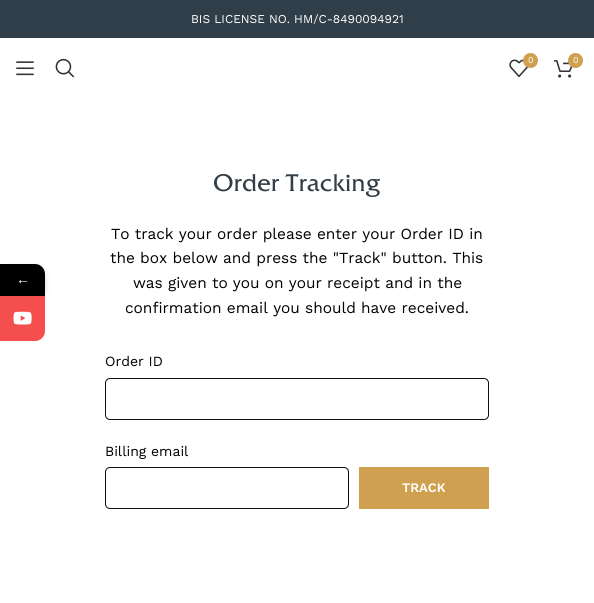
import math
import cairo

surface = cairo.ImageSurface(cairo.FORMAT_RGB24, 594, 603)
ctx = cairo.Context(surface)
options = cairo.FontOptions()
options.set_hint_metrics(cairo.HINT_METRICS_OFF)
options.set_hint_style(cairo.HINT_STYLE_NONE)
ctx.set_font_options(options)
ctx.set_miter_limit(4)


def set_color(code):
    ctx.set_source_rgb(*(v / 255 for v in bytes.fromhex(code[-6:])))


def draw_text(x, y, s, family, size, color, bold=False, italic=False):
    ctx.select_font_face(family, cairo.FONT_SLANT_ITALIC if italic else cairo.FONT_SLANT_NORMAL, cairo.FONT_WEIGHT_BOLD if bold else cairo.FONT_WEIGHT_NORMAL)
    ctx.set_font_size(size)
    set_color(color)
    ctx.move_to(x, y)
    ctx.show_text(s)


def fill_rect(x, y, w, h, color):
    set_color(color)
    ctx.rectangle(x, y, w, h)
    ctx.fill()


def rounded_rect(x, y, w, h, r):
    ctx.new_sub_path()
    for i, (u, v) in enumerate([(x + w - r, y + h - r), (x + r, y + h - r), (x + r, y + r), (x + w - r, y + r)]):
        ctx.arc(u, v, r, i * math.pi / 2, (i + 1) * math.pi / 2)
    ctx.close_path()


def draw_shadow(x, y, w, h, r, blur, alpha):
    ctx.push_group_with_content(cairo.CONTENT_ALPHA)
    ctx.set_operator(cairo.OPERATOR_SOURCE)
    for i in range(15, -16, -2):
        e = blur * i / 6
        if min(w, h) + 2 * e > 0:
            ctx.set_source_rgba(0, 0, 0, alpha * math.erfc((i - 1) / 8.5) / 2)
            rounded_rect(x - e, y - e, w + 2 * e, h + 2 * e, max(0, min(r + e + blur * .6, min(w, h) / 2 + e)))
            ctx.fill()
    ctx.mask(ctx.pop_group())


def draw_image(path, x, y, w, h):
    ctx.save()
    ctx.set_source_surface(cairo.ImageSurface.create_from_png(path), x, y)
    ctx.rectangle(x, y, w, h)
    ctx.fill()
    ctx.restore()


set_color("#ffffff")
ctx.paint()
set_color("#000000")
draw_shadow(0, 267, 45, 32, 10, 3, 0.16)
set_color("#000000")
ctx.new_path()
ctx.move_to(0, 264)
ctx.line_to(35, 264)
ctx.curve_to(40.5, 264, 45, 268.5, 45, 274)
ctx.line_to(45, 296)
ctx.line_to(0, 296)
ctx.close_path()
ctx.fill()
draw_text(16, 284, "←", "Liberation Serif", 14, "#ffffff")
set_color("#f54e4e")
ctx.new_path()
ctx.move_to(0, 296)
ctx.line_to(45, 296)
ctx.line_to(45, 331)
ctx.curve_to(45, 336.5, 40.5, 341, 35, 341)
ctx.line_to(0, 341)
ctx.close_path()
ctx.fill()
draw_image("assets/img1.png", 13, 311, 19, 14)
fill_rect(0, 0, 594, 38, "#303e49")
draw_text(191, 23, "BIS LICENSE NO. HM/C-8490094921", "Work Sans", 12, "#ffffff")
draw_image("assets/img2.png", 16, 61, 18, 15)
draw_image("assets/img3.png", 55, 58, 20, 20)
draw_image("assets/img4.png", 509, 59, 20, 18)
set_color("#cfa04f")
ctx.arc(530.5, 60.5, 7.5, 0, 2 * math.pi)
ctx.fill()
draw_text(528, 63, "0", "Work Sans", 9, "#ffffff")
draw_image("assets/img5.png", 554, 60, 19, 18)
set_color("#cfa04f")
ctx.arc(575.5, 60.5, 7.5, 0, 2 * math.pi)
ctx.fill()
draw_text(573, 63, "0", "Work Sans", 9, "#ffffff")
draw_text(213, 191, "Order Tracking", "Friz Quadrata", 24, "#333e48")
draw_text(111, 239, "To track your order please enter your Order ID in", "Work Sans", 15.4, "#000000")
draw_text(110, 263, "the box below and press the \"Track\" button. This", "Work Sans", 15.4, "#000000")
draw_text(133, 288, "was given to you on your receipt and in the", "Work Sans", 15.4, "#000000")
draw_text(125, 313, "confirmation email you should have received.", "Work Sans", 15.4, "#000000")
draw_text(105, 366, "Order ID", "Work Sans", 14, "#000000")
rounded_rect(105.5, 378.5, 383, 41, 4.5)
set_color("#0f0f0f")
ctx.set_line_width(1)
ctx.stroke()
draw_text(105, 456, "Billing email", "Work Sans", 14, "#000000")
rounded_rect(105.5, 467.5, 243, 41, 4.5)
set_color("#0f0f0f")
ctx.stroke()
fill_rect(359, 467, 130, 42, "#cfa04f")
draw_text(402, 492, "TRACK", "Work Sans SemiBold", 13, "#ffffff")
surface.write_to_png("output.png")
